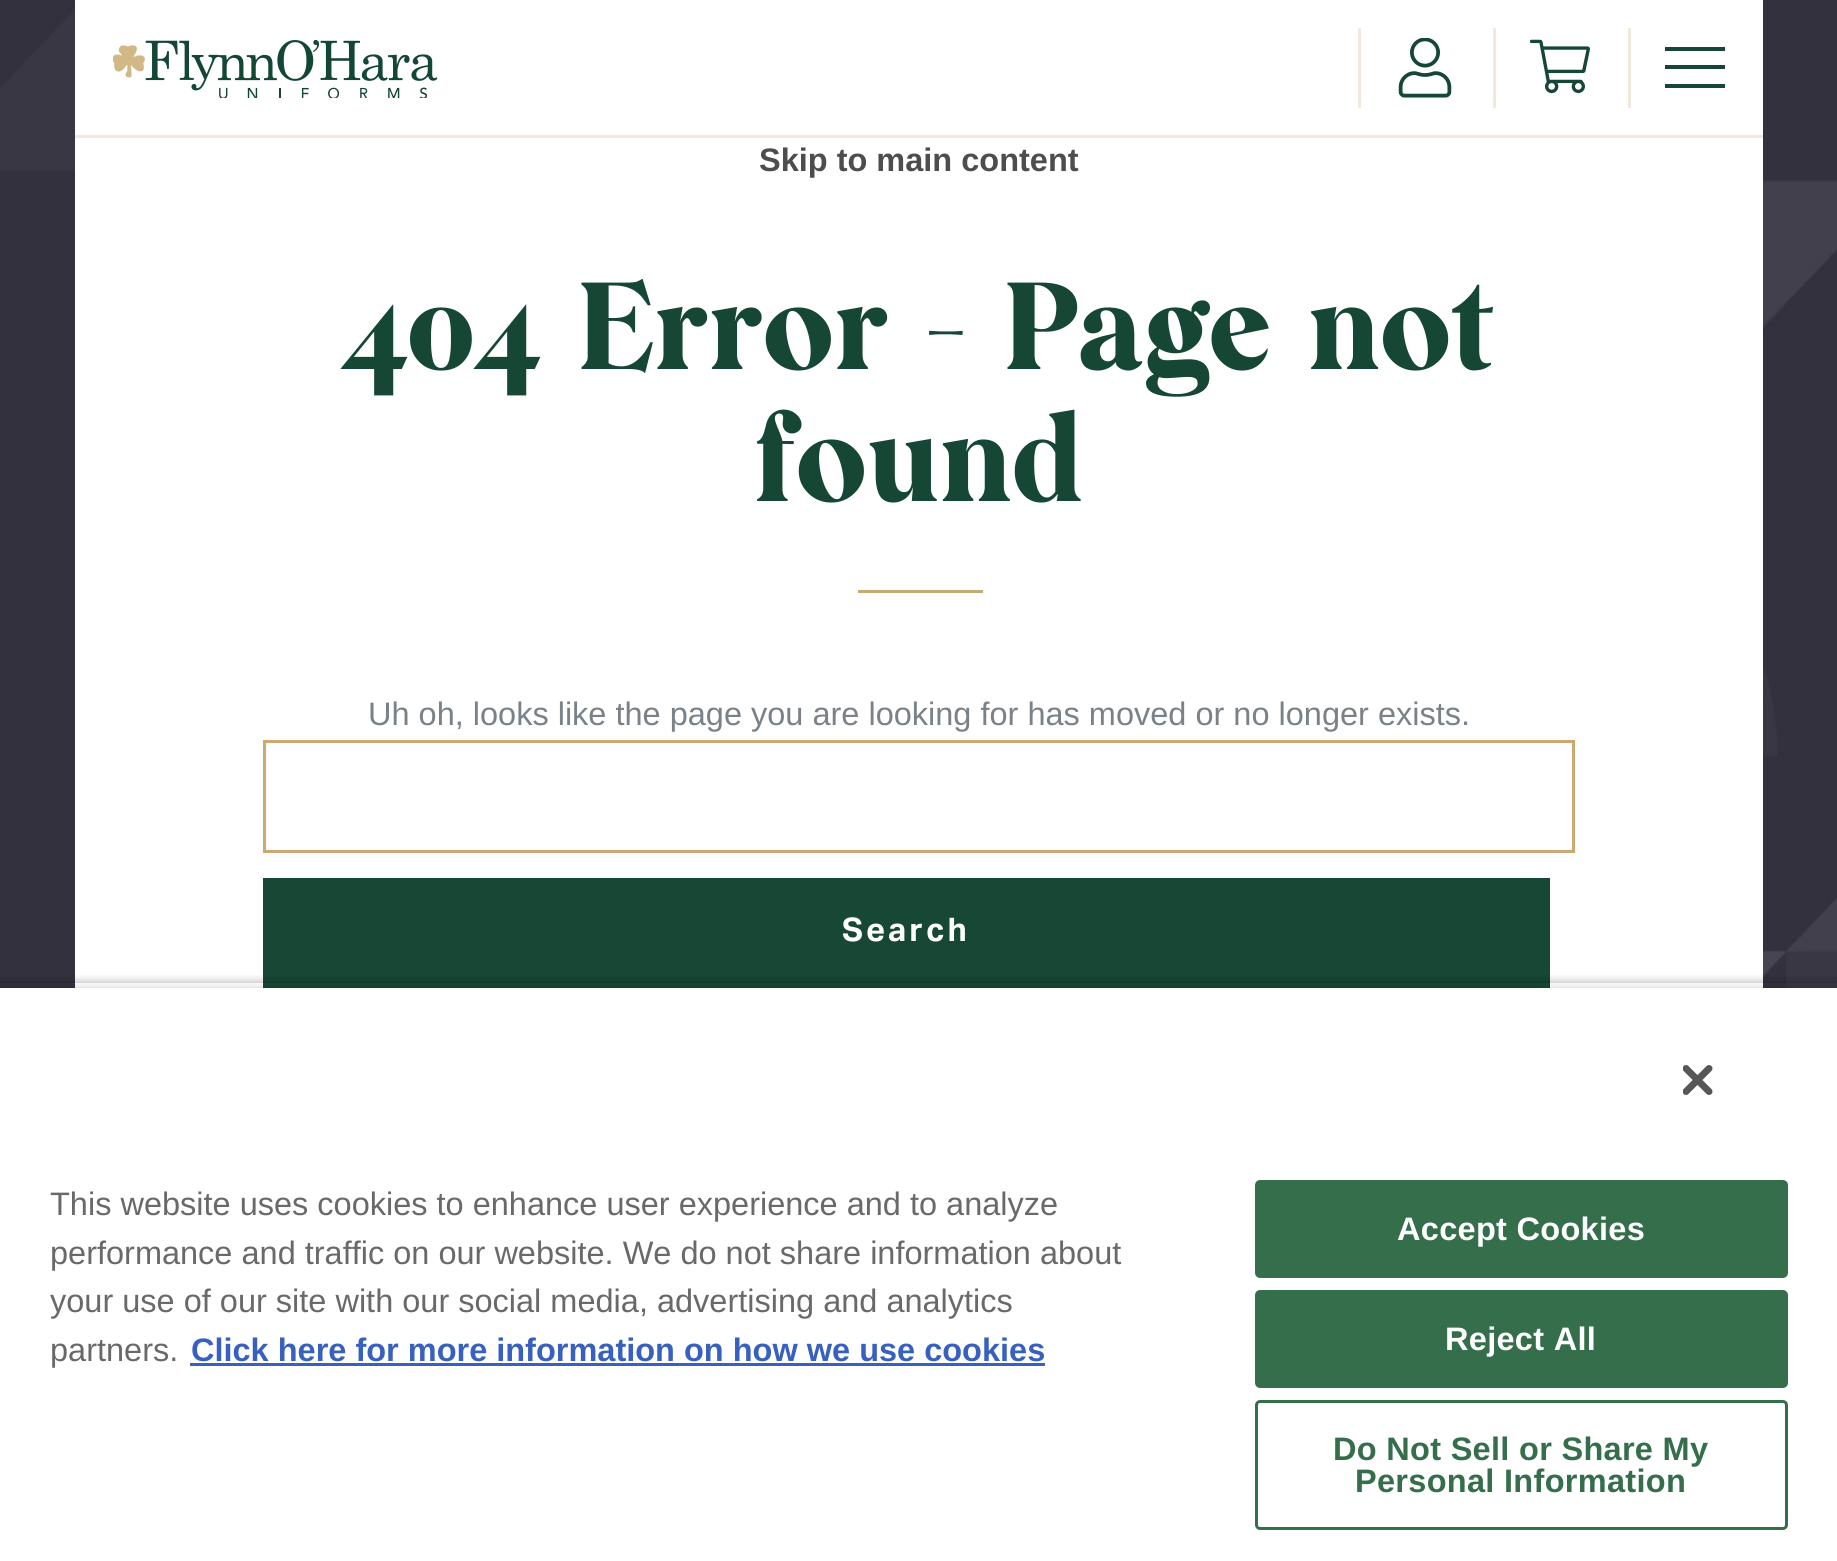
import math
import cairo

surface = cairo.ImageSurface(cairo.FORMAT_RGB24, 1837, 1561)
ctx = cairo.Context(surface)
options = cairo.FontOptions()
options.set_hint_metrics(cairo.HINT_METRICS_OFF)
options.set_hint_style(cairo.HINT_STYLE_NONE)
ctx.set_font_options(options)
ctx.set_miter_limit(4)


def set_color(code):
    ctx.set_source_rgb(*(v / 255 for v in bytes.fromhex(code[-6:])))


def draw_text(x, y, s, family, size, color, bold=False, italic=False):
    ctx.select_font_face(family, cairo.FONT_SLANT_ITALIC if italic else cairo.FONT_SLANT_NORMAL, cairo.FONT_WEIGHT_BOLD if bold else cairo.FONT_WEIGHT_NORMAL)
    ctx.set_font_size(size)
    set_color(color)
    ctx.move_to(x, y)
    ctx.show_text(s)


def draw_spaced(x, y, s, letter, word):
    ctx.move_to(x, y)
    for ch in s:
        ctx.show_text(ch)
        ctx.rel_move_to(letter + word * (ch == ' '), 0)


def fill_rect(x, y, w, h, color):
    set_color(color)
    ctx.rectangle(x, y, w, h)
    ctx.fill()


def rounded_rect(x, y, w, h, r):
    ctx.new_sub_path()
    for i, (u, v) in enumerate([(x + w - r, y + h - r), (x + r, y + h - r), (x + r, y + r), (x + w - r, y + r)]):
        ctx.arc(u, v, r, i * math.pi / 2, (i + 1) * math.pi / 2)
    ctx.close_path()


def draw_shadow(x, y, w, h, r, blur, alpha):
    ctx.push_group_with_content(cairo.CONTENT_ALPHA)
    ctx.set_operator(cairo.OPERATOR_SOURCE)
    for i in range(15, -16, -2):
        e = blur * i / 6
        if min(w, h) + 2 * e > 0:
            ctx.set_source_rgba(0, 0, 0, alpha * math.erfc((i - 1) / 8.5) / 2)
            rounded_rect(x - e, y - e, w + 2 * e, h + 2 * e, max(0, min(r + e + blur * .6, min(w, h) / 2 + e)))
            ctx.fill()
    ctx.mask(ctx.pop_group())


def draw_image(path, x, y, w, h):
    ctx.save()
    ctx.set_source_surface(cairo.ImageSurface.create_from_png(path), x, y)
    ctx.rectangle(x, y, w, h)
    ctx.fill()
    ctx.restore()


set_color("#ffffff")
ctx.paint()
draw_image("assets/img1.png", 0, 0, 1837, 988)
fill_rect(75, 0, 1688, 135, "#ffffff")
fill_rect(75, 135, 1688, 3, "#f1e9dc")
draw_image("assets/img2.png", 113, 40, 325, 58)
fill_rect(1358, 28, 3, 80, "#f1e9dc")
draw_image("assets/img3.png", 1398, 38, 54, 60)
fill_rect(1493, 28, 3, 80, "#f1e9dc")
draw_image("assets/img4.png", 1530, 39, 60, 55)
fill_rect(1628, 28, 3, 80, "#f1e9dc")
set_color("#154734")
ctx.new_path()
ctx.move_to(1725, 84)
ctx.line_to(1725, 88)
ctx.line_to(1665, 88)
ctx.line_to(1665, 84)
ctx.close_path()
ctx.move_to(1725, 65)
ctx.line_to(1725, 69)
ctx.line_to(1665, 69)
ctx.line_to(1665, 65)
ctx.close_path()
ctx.move_to(1725, 47)
ctx.line_to(1725, 51)
ctx.line_to(1665, 51)
ctx.line_to(1665, 47)
ctx.close_path()
ctx.fill()
fill_rect(75, 138, 1688, 850, "#ffffff")
draw_text(759, 171, "Skip to main content", "Liberation Sans", 32.5, "#4d4d4f", bold=True)
ctx.select_font_face("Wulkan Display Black")
ctx.set_font_size(120)
set_color("#154734")
draw_spaced(342, 369, "404 Error - Page not", 0.6, 0)
draw_spaced(754, 501, "found", 0.6, 0)
fill_rect(858, 590, 125, 3, "#c7a973")
draw_text(368, 725, "Uh oh, looks like the page you are looking for has moved or no longer exists.", "Liberation Sans", 32.5, "#798289")
ctx.rectangle(264.5, 741.5, 1309, 110)
set_color("#cca872")
ctx.set_line_width(3)
ctx.stroke()
fill_rect(263, 878, 1287, 110, "#164835")
ctx.select_font_face("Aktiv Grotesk", cairo.FONT_SLANT_NORMAL, cairo.FONT_WEIGHT_BOLD)
set_color("#ffffff")
draw_spaced(842, 941, "Search", 3, 0)
ctx.save()
ctx.rectangle(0, 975, 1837, 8)
ctx.clip()
set_color("#000000")
draw_shadow(0, 983, 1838, 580, 0, 5, 0.35)
ctx.restore()
ctx.save()
ctx.rectangle(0, 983, 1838, 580)
ctx.clip()
set_color("#000000")
draw_shadow(0, 988, 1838, 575, 0, 5, 0.2)
ctx.restore()
fill_rect(0, 988, 1837, 573, "#ffffff")
draw_image("assets/img5.png", 1683, 1065, 30, 30)
draw_text(50, 1215, "This website uses cookies to enhance user experience and to analyze", "Liberation Sans", 32.5, "#696969")
draw_text(50, 1264, "performance and traffic on our website. We do not share information about", "Liberation Sans", 32.5, "#696969")
draw_text(50, 1312, "your use of our site with our social media, advertising and analytics", "Liberation Sans", 32.5, "#696969")
draw_text(50, 1361, "partners.", "Liberation Sans", 32.5, "#696969")
draw_text(191, 1361, "Click here for more information on how we use cookies", "Liberation Sans", 32.5, "#3860be", bold=True)
fill_rect(190, 1363, 855, 3, "#3860be")
set_color("#346e4a")
rounded_rect(1256.5, 1181.5, 530, 95, 3.5)
ctx.fill_preserve()
ctx.stroke()
set_color("#ffffff")
draw_spaced(1397, 1240, "Accept Cookies", 0.3, 0)
set_color("#346e4a")
rounded_rect(1256.5, 1291.5, 530, 95, 3.5)
ctx.fill_preserve()
ctx.stroke()
set_color("#ffffff")
draw_spaced(1445, 1350, "Reject All", 0.3, 0)
rounded_rect(1256.5, 1401.5, 530, 127, 3.5)
set_color("#346e4a")
ctx.stroke()
draw_spaced(1333, 1460, "Do Not Sell or Share My", 0.3, 0)
draw_spaced(1355, 1492, "Personal Information", 0.3, 0)
surface.write_to_png("output.png")
